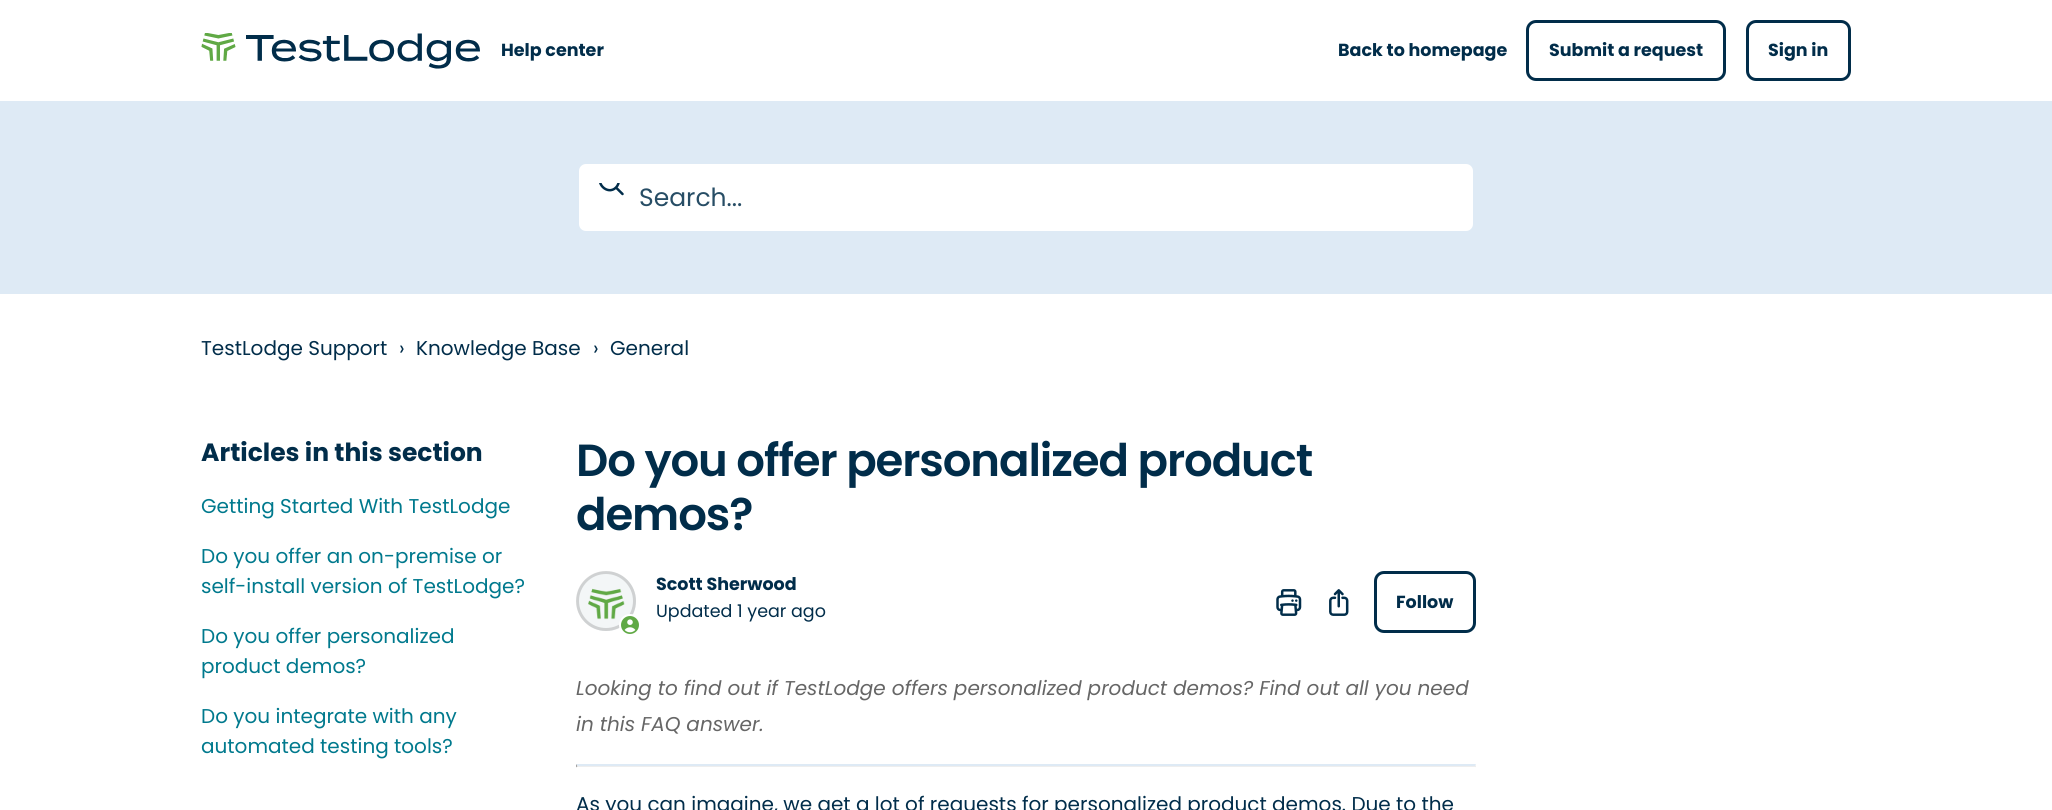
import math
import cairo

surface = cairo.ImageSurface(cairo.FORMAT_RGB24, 2052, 810)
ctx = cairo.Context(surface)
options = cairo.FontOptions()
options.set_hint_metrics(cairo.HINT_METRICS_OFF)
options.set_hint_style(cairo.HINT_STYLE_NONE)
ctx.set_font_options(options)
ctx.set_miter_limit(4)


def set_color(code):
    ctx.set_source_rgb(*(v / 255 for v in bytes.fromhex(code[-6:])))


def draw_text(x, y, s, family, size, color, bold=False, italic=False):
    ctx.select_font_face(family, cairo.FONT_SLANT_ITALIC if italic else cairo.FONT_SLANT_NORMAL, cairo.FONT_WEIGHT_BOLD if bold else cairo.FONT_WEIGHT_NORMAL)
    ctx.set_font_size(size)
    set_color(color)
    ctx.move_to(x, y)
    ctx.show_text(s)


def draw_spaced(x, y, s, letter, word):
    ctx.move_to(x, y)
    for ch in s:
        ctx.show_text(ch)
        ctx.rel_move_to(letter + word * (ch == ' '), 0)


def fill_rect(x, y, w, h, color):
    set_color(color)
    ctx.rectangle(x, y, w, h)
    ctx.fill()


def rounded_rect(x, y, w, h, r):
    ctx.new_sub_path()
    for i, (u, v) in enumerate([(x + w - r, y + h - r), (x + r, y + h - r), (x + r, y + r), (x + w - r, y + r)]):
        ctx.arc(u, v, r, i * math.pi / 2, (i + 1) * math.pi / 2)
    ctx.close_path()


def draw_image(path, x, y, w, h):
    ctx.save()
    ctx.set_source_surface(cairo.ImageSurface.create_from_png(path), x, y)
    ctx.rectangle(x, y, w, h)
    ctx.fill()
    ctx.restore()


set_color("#ffffff")
ctx.paint()
draw_image("assets/img1.png", 201, 33, 279, 36)
draw_text(501, 56, "Help center", "Poppins", 17.5, "#012d4a", bold=True)
draw_text(1338, 56, "Back to homepage", "Poppins", 17.5, "#012d4a", bold=True)
rounded_rect(1527.5, 21.5, 197, 58, 8.5)
ctx.set_line_width(3)
ctx.stroke()
draw_text(1549, 56, "Submit a request", "Poppins", 17.5, "#012d4a", bold=True)
rounded_rect(1747.5, 21.5, 102, 58, 8.5)
ctx.stroke()
draw_text(1768, 56, "Sign in", "Poppins", 17.5, "#012d4a", bold=True)
fill_rect(0, 101, 2052, 193, "#deeaf5")
set_color("#ffffff")
rounded_rect(577.5, 162.5, 897, 70, 8.5)
ctx.fill_preserve()
set_color("#deeaf5")
ctx.stroke()
ctx.save()
ctx.rectangle(596, 183, 30, 30)
ctx.clip()
ctx.new_path()
ctx.move_to(622.5, 194)
ctx.line_to(616, 187.5)
ctx.move_to(616, 187.5)
ctx.curve_to(624.5, 178.5, 611.5, 165.5, 602.5, 174)
ctx.curve_to(594, 182.5, 607.5, 196, 616, 187.5)
ctx.close_path()
set_color("#012d4a")
ctx.set_line_width(2.5)
ctx.set_line_cap(cairo.LINE_CAP_ROUND)
ctx.set_line_join(cairo.LINE_JOIN_ROUND)
ctx.stroke()
ctx.restore()
draw_text(639, 206, "Search...", "Poppins", 25, "#274d65")
draw_text(201, 355, "TestLodge Support", "Poppins", 20, "#012d4a")
draw_text(399, 355, "›", "Poppins", 20, "#012d4a")
draw_text(416, 355, "Knowledge Base", "Poppins", 20, "#012d4a")
draw_text(593, 355, "›", "Poppins", 20, "#012d4a")
draw_text(610, 355, "General", "Poppins", 20, "#012d4a")
draw_text(201, 461, "Articles in this section", "Poppins", 25, "#012d4a", bold=True)
draw_text(201, 513, "Getting Started With TestLodge", "Poppins", 20, "#00798d")
draw_text(201, 563, "Do you offer an on-premise or", "Poppins", 20, "#00798d")
draw_text(201, 593, "self-install version of TestLodge?", "Poppins", 20, "#00798d")
draw_text(201, 643, "Do you offer personalized", "Poppins", 20, "#00798d")
draw_text(201, 673, "product demos?", "Poppins", 20, "#00798d")
draw_text(201, 723, "Do you integrate with any", "Poppins", 20, "#00798d")
draw_text(201, 753, "automated testing tools?", "Poppins", 20, "#00798d")
ctx.select_font_face("Poppins SemiBold")
ctx.set_font_size(45)
set_color("#012d4a")
draw_spaced(576, 476, "Do you offer personalized product", -1.1, 0)
draw_spaced(576, 530, "demos?", -1.1, 0)
draw_image("assets/img2.png", 576, 571, 60, 60)
ctx.arc(606, 601, 28.5, 0, 2 * math.pi)
ctx.set_source_rgba(0, 0, 0, 0.15)
ctx.stroke()
set_color("#ffffff")
ctx.arc(630, 625, 11, 0, 2 * math.pi)
ctx.fill()
draw_image("assets/img3.png", 621, 616, 18, 18)
draw_text(656, 590, "Scott Sherwood", "Poppins", 17.5, "#012d4a", bold=True)
draw_text(656, 617, "Updated 1 year ago", "Poppins", 17.5, "#012d4a")
draw_image("assets/img4.png", 1276, 589, 26, 27)
draw_image("assets/img5.png", 1329, 589, 20, 27)
rounded_rect(1375.5, 572.5, 99, 59, 8.5)
ctx.stroke()
draw_text(1396, 608, "Follow", "Poppins", 17.5, "#012d4a", bold=True)
draw_text(576, 695, "Looking to find out if TestLodge offers personalized product demos? Find out all you need", "Poppins", 20, "#666666", italic=True)
draw_text(576, 731, "in this FAQ answer.", "Poppins", 20, "#666666", italic=True)
set_color("#deeaf5")
ctx.new_path()
ctx.move_to(576, 764)
ctx.line_to(1476, 764)
ctx.line_to(1475, 766)
ctx.line_to(578, 766)
ctx.close_path()
ctx.fill()
set_color("#eeeeee")
ctx.new_path()
ctx.move_to(1476, 764)
ctx.line_to(1476, 767.5)
ctx.line_to(1475, 766)
ctx.close_path()
ctx.fill()
fill_rect(576, 766, 900, 1, "#eeeeee")
set_color("#9f9f9f")
ctx.new_path()
ctx.move_to(576, 767.5)
ctx.line_to(576, 764)
ctx.line_to(577.5, 766)
ctx.close_path()
ctx.fill()
draw_text(576, 811, "As you can imagine, we get a lot of requests for personalized product demos. Due to the", "Poppins", 20, "#012d4a")
surface.write_to_png("output.png")
